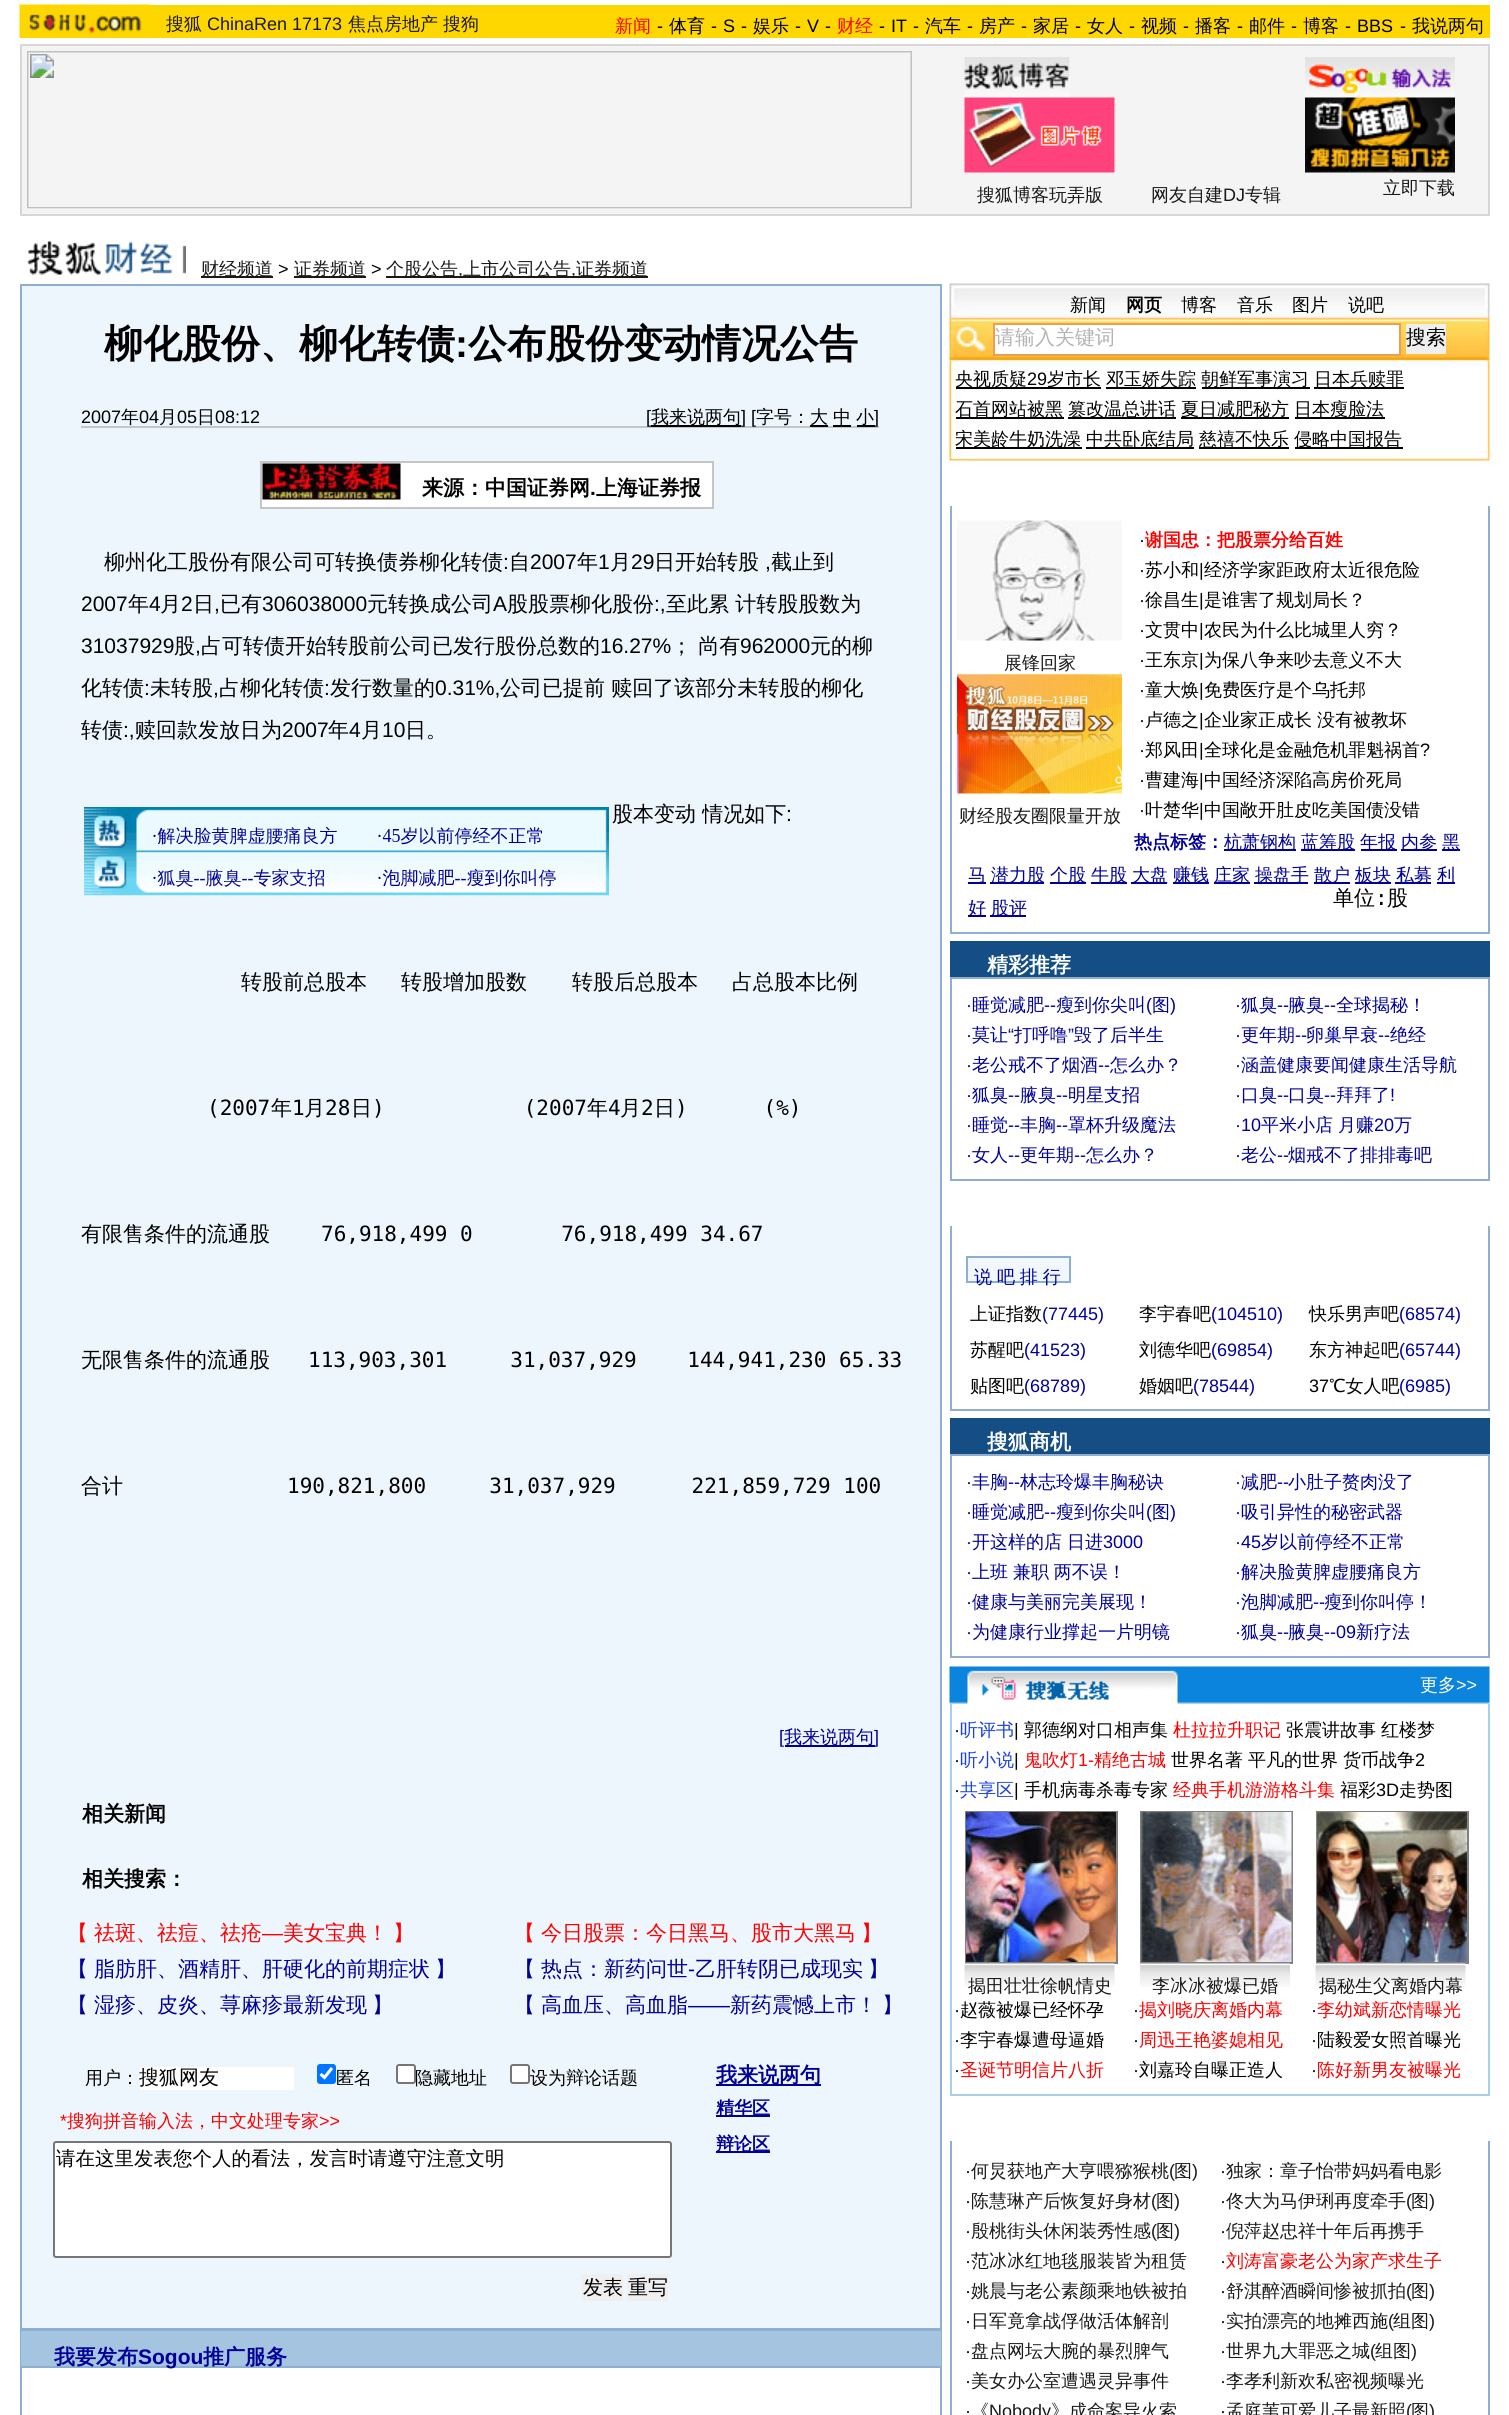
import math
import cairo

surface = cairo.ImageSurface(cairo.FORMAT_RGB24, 1509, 2415)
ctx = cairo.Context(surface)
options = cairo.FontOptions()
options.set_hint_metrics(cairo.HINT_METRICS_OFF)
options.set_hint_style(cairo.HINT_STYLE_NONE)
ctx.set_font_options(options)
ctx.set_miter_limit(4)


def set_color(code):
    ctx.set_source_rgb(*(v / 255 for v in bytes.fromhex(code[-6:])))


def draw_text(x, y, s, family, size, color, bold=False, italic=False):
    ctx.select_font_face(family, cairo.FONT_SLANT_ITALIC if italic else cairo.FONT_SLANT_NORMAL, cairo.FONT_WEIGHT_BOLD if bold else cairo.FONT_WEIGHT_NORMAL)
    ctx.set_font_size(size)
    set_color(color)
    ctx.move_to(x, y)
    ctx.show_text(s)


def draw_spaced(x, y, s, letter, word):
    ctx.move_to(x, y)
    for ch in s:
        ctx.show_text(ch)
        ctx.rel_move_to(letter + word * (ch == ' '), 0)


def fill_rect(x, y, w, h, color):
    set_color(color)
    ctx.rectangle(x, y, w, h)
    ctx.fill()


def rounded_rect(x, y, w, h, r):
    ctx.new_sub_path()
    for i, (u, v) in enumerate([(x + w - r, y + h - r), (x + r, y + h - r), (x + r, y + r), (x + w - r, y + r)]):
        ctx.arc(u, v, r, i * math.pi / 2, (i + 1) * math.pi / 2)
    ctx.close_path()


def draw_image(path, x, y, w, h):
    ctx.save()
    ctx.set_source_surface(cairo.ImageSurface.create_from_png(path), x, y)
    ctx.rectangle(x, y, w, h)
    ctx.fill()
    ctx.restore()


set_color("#ffffff")
ctx.paint()
fill_rect(20, 5, 1470, 33, "#ffd700")
draw_image("assets/img1.png", 19, 4, 131, 34)
draw_text(166, 30, "搜狐", "WenQuanYi Zen Hei Medium", 18, "#191919")
draw_text(207, 30, "ChinaRen 17173", "Liberation Sans", 18, "#191919")
draw_text(348, 30, "焦点房地产", "WenQuanYi Zen Hei Medium", 18, "#191919")
draw_text(443, 30, "搜狗", "WenQuanYi Zen Hei Medium", 18, "#191919")
draw_text(615, 32, "新闻", "WenQuanYi Zen Hei Medium", 18, "#ff0000")
draw_text(657, 32, "-", "Liberation Sans", 18, "#000000")
draw_text(669, 32, "体育", "WenQuanYi Zen Hei Medium", 18, "#000000")
draw_text(711, 32, "-", "Liberation Sans", 18, "#000000")
draw_text(723, 32, "S", "Liberation Sans", 18, "#000000")
draw_text(741, 32, "-", "Liberation Sans", 18, "#000000")
draw_text(753, 32, "娱乐", "WenQuanYi Zen Hei Medium", 18, "#000000")
draw_text(795, 32, "-", "Liberation Sans", 18, "#000000")
draw_text(807, 32, "V", "Liberation Sans", 18, "#000000")
draw_text(825, 32, "-", "Liberation Sans", 18, "#000000")
draw_text(837, 32, "财经", "WenQuanYi Zen Hei Medium", 18, "#ff0000")
draw_text(879, 32, "-", "Liberation Sans", 18, "#000000")
draw_text(891, 32, "IT", "Liberation Sans", 18, "#000000")
draw_text(913, 32, "-", "Liberation Sans", 18, "#000000")
draw_text(925, 32, "汽车", "WenQuanYi Zen Hei Medium", 18, "#000000")
draw_text(967, 32, "-", "Liberation Sans", 18, "#000000")
draw_text(979, 32, "房产", "WenQuanYi Zen Hei Medium", 18, "#000000")
draw_text(1021, 32, "-", "Liberation Sans", 18, "#000000")
draw_text(1033, 32, "家居", "WenQuanYi Zen Hei Medium", 18, "#000000")
draw_text(1075, 32, "-", "Liberation Sans", 18, "#000000")
draw_text(1087, 32, "女人", "WenQuanYi Zen Hei Medium", 18, "#000000")
draw_text(1129, 32, "-", "Liberation Sans", 18, "#000000")
draw_text(1141, 32, "视频", "WenQuanYi Zen Hei Medium", 18, "#000000")
draw_text(1183, 32, "-", "Liberation Sans", 18, "#000000")
draw_text(1195, 32, "播客", "WenQuanYi Zen Hei Medium", 18, "#000000")
draw_text(1237, 32, "-", "Liberation Sans", 18, "#000000")
draw_text(1249, 32, "邮件", "WenQuanYi Zen Hei Medium", 18, "#000000")
draw_text(1291, 32, "-", "Liberation Sans", 18, "#000000")
draw_text(1303, 32, "博客", "WenQuanYi Zen Hei Medium", 18, "#000000")
draw_text(1345, 32, "-", "Liberation Sans", 18, "#000000")
draw_text(1357, 32, "BBS", "Liberation Sans", 18, "#000000")
draw_text(1400, 32, "-", "Liberation Sans", 18, "#000000")
draw_text(1412, 32, "我说两句", "WenQuanYi Zen Hei Medium", 18, "#000000")
set_color("#f4f4f4")
ctx.rectangle(21, 45, 1468, 170)
ctx.fill_preserve()
set_color("#d7d7d7")
ctx.stroke()
draw_image("assets/img2.png", 27, 51, 885, 158)
draw_image("assets/img3.png", 964, 57, 106, 41)
draw_image("assets/img4.png", 964, 97, 151, 76)
draw_text(977, 201, "搜狐博客玩弄版", "WenQuanYi Zen Hei Medium", 18, "#191919")
draw_text(1151, 201, "网友自建", "WenQuanYi Zen Hei Medium", 18, "#191919")
draw_text(1223, 201, "DJ", "Liberation Sans", 18, "#191919")
draw_text(1245, 201, "专辑", "WenQuanYi Zen Hei Medium", 18, "#191919")
draw_image("assets/img5.png", 1305, 57, 150, 40)
draw_image("assets/img6.png", 1305, 97, 150, 76)
draw_text(1383, 194, "立即下载", "WenQuanYi Zen Hei Medium", 18, "#191919")
draw_image("assets/img7.png", 27, 241, 159, 34)
fill_rect(201, 276, 72, 2, "#191919")
draw_text(201, 275, "财经频道", "WenQuanYi Zen Hei Medium", 18, "#191919")
draw_text(278, 275, ">", "Liberation Sans", 18, "#000000")
fill_rect(294, 276, 72, 2, "#191919")
draw_text(294, 275, "证券频道", "WenQuanYi Zen Hei Medium", 18, "#191919")
draw_text(371, 275, ">", "Liberation Sans", 18, "#000000")
fill_rect(386, 276, 262, 2, "#191919")
draw_text(386, 275, "个股公告", "WenQuanYi Zen Hei Medium", 18, "#191919")
draw_text(463, 275, "上市公司公告", "WenQuanYi Zen Hei Medium", 18, "#191919")
draw_text(576, 275, "证券频道", "WenQuanYi Zen Hei Medium", 18, "#191919")
draw_text(458, 275, ",", "Liberation Sans", 18, "#191919")
draw_text(571, 275, ",", "Liberation Sans", 18, "#191919")
draw_image("assets/img8.png", 949, 283, 541, 178)
draw_text(1070, 311, "新闻", "WenQuanYi Zen Hei Medium", 18, "#000000")
draw_text(1126, 311, "网页", "WenQuanYi Zen Hei", 18, "#000000", bold=True)
draw_text(1181, 311, "博客", "WenQuanYi Zen Hei Medium", 18, "#000000")
draw_text(1237, 311, "音乐", "WenQuanYi Zen Hei Medium", 18, "#000000")
draw_text(1292, 311, "图片", "WenQuanYi Zen Hei Medium", 18, "#000000")
draw_text(1348, 311, "说吧", "WenQuanYi Zen Hei Medium", 18, "#000000")
set_color("#ffffff")
ctx.rectangle(994, 324, 406, 31)
ctx.fill_preserve()
set_color("#e89f57")
ctx.stroke()
draw_text(995, 344, "请输入关键词", "WenQuanYi Zen Hei Medium", 20, "#b3b3b3")
fill_rect(1406, 324, 40, 30, "#efefef")
draw_text(1406, 344, "搜索", "WenQuanYi Zen Hei Medium", 20, "#000000")
fill_rect(956, 387, 145, 2, "#000000")
draw_text(955, 385, "央视质疑", "WenQuanYi Zen Hei Medium", 18, "#000000")
draw_text(1027, 385, "29", "Liberation Sans", 18, "#000000")
draw_text(1047, 385, "岁市长", "WenQuanYi Zen Hei Medium", 18, "#000000")
fill_rect(1106, 387, 90, 2, "#000000")
draw_text(1106, 385, "邓玉娇失踪", "WenQuanYi Zen Hei Medium", 18, "#000000")
fill_rect(1202, 387, 108, 2, "#000000")
draw_text(1201, 385, "朝鲜军事演习", "WenQuanYi Zen Hei Medium", 18, "#000000")
fill_rect(1314, 387, 90, 2, "#000000")
draw_text(1314, 385, "日本兵赎罪", "WenQuanYi Zen Hei Medium", 18, "#000000")
fill_rect(956, 417, 108, 2, "#000000")
draw_text(955, 415, "石首网站被黑", "WenQuanYi Zen Hei Medium", 18, "#000000")
fill_rect(1068, 417, 108, 2, "#000000")
draw_text(1068, 415, "篡改温总讲话", "WenQuanYi Zen Hei Medium", 18, "#000000")
fill_rect(1181, 417, 108, 2, "#000000")
draw_text(1181, 415, "夏日减肥秘方", "WenQuanYi Zen Hei Medium", 18, "#000000")
fill_rect(1295, 417, 90, 2, "#000000")
draw_text(1294, 415, "日本瘦脸法", "WenQuanYi Zen Hei Medium", 18, "#000000")
fill_rect(956, 447, 126, 2, "#000000")
draw_text(955, 445, "宋美龄牛奶洗澡", "WenQuanYi Zen Hei Medium", 18, "#000000")
fill_rect(1086, 447, 108, 2, "#000000")
draw_text(1086, 445, "中共卧底结局", "WenQuanYi Zen Hei Medium", 18, "#000000")
fill_rect(1199, 447, 90, 2, "#000000")
draw_text(1199, 445, "慈禧不快乐", "WenQuanYi Zen Hei Medium", 18, "#000000")
fill_rect(1295, 447, 108, 2, "#000000")
draw_text(1294, 445, "侵略中国报告", "WenQuanYi Zen Hei Medium", 18, "#000000")
fill_rect(1488, 506, 2, 427, "#8fafd2")
fill_rect(950, 932, 540, 2, "#8fafd2")
fill_rect(950, 506, 2, 427, "#8fafd2")
draw_image("assets/img9.png", 957, 520, 165, 121)
draw_text(1004, 669, "展锋回家", "WenQuanYi Zen Hei Medium", 18, "#191919")
draw_image("assets/img10.png", 957, 673, 165, 121)
draw_text(959, 822, "财经股友圈限量开放", "WenQuanYi Zen Hei Medium", 18, "#191919")
draw_text(1139, 546, "·", "Liberation Sans", 18, "#000000")
draw_text(1145, 546, "谢国忠：把股票分给百姓", "WenQuanYi Zen Hei", 18, "#ff0000", bold=True)
draw_text(1139, 576, "·", "Liberation Sans", 18, "#000000")
draw_text(1145, 576, "苏小和", "WenQuanYi Zen Hei Medium", 18, "#000000")
draw_text(1199, 576, "|", "Liberation Sans", 18, "#000000")
draw_text(1204, 576, "经济学家距政府太近很危险", "WenQuanYi Zen Hei Medium", 18, "#000000")
draw_text(1139, 606, "·", "Liberation Sans", 18, "#000000")
draw_text(1145, 606, "徐昌生", "WenQuanYi Zen Hei Medium", 18, "#000000")
draw_text(1199, 606, "|", "Liberation Sans", 18, "#000000")
draw_text(1204, 606, "是谁害了规划局长？", "WenQuanYi Zen Hei Medium", 18, "#000000")
draw_text(1139, 636, "·", "Liberation Sans", 18, "#000000")
draw_text(1145, 636, "文贯中", "WenQuanYi Zen Hei Medium", 18, "#000000")
draw_text(1199, 636, "|", "Liberation Sans", 18, "#000000")
draw_text(1204, 636, "农民为什么比城里人穷？", "WenQuanYi Zen Hei Medium", 18, "#000000")
draw_text(1139, 666, "·", "Liberation Sans", 18, "#000000")
draw_text(1145, 666, "王东京", "WenQuanYi Zen Hei Medium", 18, "#000000")
draw_text(1199, 666, "|", "Liberation Sans", 18, "#000000")
draw_text(1204, 666, "为保八争来吵去意义不大", "WenQuanYi Zen Hei Medium", 18, "#000000")
draw_text(1139, 696, "·", "Liberation Sans", 18, "#000000")
draw_text(1145, 696, "童大焕", "WenQuanYi Zen Hei Medium", 18, "#000000")
draw_text(1199, 696, "|", "Liberation Sans", 18, "#000000")
draw_text(1204, 696, "免费医疗是个乌托邦", "WenQuanYi Zen Hei Medium", 18, "#000000")
draw_text(1139, 726, "·", "Liberation Sans", 18, "#000000")
draw_text(1145, 726, "卢德之", "WenQuanYi Zen Hei Medium", 18, "#000000")
draw_text(1199, 726, "|", "Liberation Sans", 18, "#000000")
ctx.select_font_face("WenQuanYi Zen Hei Medium")
draw_spaced(1204, 726, "企业家正成长 没有被教坏", 0, -0.5)
draw_text(1139, 756, "·", "Liberation Sans", 18, "#000000")
draw_text(1145, 756, "郑风田", "WenQuanYi Zen Hei Medium", 18, "#000000")
draw_text(1199, 756, "|", "Liberation Sans", 18, "#000000")
draw_text(1204, 756, "全球化是金融危机罪魁祸首", "WenQuanYi Zen Hei Medium", 18, "#000000")
draw_text(1420, 756, "?", "Liberation Sans", 18, "#000000")
draw_text(1139, 786, "·", "Liberation Sans", 18, "#000000")
draw_text(1145, 786, "曹建海", "WenQuanYi Zen Hei Medium", 18, "#000000")
draw_text(1199, 786, "|", "Liberation Sans", 18, "#000000")
draw_text(1204, 786, "中国经济深陷高房价死局", "WenQuanYi Zen Hei Medium", 18, "#000000")
draw_text(1139, 816, "·", "Liberation Sans", 18, "#000000")
draw_text(1145, 816, "叶楚华", "WenQuanYi Zen Hei Medium", 18, "#000000")
draw_text(1199, 816, "|", "Liberation Sans", 18, "#000000")
draw_text(1204, 816, "中国敞开肚皮吃美国债没错", "WenQuanYi Zen Hei Medium", 18, "#000000")
draw_text(1134, 848, "热点标签：", "WenQuanYi Zen Hei", 18, "#000099", bold=True)
fill_rect(1224, 849, 72, 2, "#000099")
draw_text(1224, 848, "杭萧钢构", "WenQuanYi Zen Hei Medium", 18, "#000099")
fill_rect(1301, 849, 54, 2, "#000099")
draw_text(1301, 848, "蓝筹股", "WenQuanYi Zen Hei Medium", 18, "#000099")
fill_rect(1361, 849, 36, 2, "#000099")
draw_text(1360, 848, "年报", "WenQuanYi Zen Hei Medium", 18, "#000099")
fill_rect(1401, 849, 36, 2, "#000099")
draw_text(1401, 848, "内参", "WenQuanYi Zen Hei Medium", 18, "#000099")
fill_rect(1442, 849, 18, 2, "#000099")
draw_text(1442, 848, "黑", "WenQuanYi Zen Hei Medium", 18, "#000099")
fill_rect(968, 882, 18, 2, "#000099")
draw_text(968, 881, "马", "WenQuanYi Zen Hei Medium", 18, "#000099")
fill_rect(990, 882, 54, 2, "#000099")
draw_text(991, 881, "潜力股", "WenQuanYi Zen Hei Medium", 18, "#000099")
fill_rect(1050, 882, 36, 2, "#000099")
draw_text(1050, 881, "个股", "WenQuanYi Zen Hei Medium", 18, "#000099")
fill_rect(1091, 882, 36, 2, "#000099")
draw_text(1091, 881, "牛股", "WenQuanYi Zen Hei Medium", 18, "#000099")
fill_rect(1131, 882, 36, 2, "#000099")
draw_text(1132, 881, "大盘", "WenQuanYi Zen Hei Medium", 18, "#000099")
fill_rect(1173, 882, 36, 2, "#000099")
draw_text(1173, 881, "赚钱", "WenQuanYi Zen Hei Medium", 18, "#000099")
fill_rect(1214, 882, 36, 2, "#000099")
draw_text(1214, 881, "庄家", "WenQuanYi Zen Hei Medium", 18, "#000099")
fill_rect(1254, 882, 54, 2, "#000099")
draw_text(1255, 881, "操盘手", "WenQuanYi Zen Hei Medium", 18, "#000099")
fill_rect(1314, 882, 36, 2, "#000099")
draw_text(1314, 881, "散户", "WenQuanYi Zen Hei Medium", 18, "#000099")
fill_rect(1355, 882, 36, 2, "#000099")
draw_text(1355, 881, "板块", "WenQuanYi Zen Hei Medium", 18, "#000099")
fill_rect(1395, 882, 36, 2, "#000099")
draw_text(1396, 881, "私募", "WenQuanYi Zen Hei Medium", 18, "#000099")
fill_rect(1437, 882, 18, 2, "#000099")
draw_text(1437, 881, "利", "WenQuanYi Zen Hei Medium", 18, "#000099")
fill_rect(968, 915, 18, 2, "#000099")
draw_text(968, 914, "好", "WenQuanYi Zen Hei Medium", 18, "#000099")
fill_rect(990, 915, 36, 2, "#000099")
draw_text(991, 914, "股评", "WenQuanYi Zen Hei Medium", 18, "#000099")
fill_rect(950, 941, 540, 36, "#144e84")
draw_text(987, 972, "精彩推荐", "WenQuanYi Zen Hei", 21, "#ffffff", bold=True)
ctx.rectangle(951, 978, 538, 202)
set_color("#8fafd2")
ctx.stroke()
draw_text(966, 1011, "·", "Liberation Sans", 18, "#000099")
draw_text(972, 1011, "睡觉减肥", "WenQuanYi Zen Hei Medium", 18, "#000099")
draw_text(1044, 1011, "--", "Liberation Sans", 18, "#000099")
draw_text(1056, 1011, "瘦到你尖叫", "WenQuanYi Zen Hei Medium", 18, "#000099")
draw_text(1146, 1011, "(", "Liberation Sans", 18, "#000099")
draw_text(1152, 1011, "图", "WenQuanYi Zen Hei Medium", 18, "#000099")
draw_text(1170, 1011, ")", "Liberation Sans", 18, "#000099")
draw_text(1235, 1011, "·", "Liberation Sans", 18, "#000099")
draw_text(1241, 1011, "狐臭", "WenQuanYi Zen Hei Medium", 18, "#000099")
draw_text(1277, 1011, "--", "Liberation Sans", 18, "#000099")
draw_text(1288, 1011, "腋臭", "WenQuanYi Zen Hei Medium", 18, "#000099")
draw_text(1324, 1011, "--", "Liberation Sans", 18, "#000099")
draw_text(1336, 1011, "全球揭秘！", "WenQuanYi Zen Hei Medium", 18, "#000099")
draw_text(972, 1041, "莫让", "WenQuanYi Zen Hei Medium", 18, "#000099")
draw_text(1008, 1041, "“", "Liberation Sans", 18, "#000099")
draw_text(1014, 1041, "打呼噜", "WenQuanYi Zen Hei Medium", 18, "#000099")
draw_text(1068, 1041, "”", "Liberation Sans", 18, "#000099")
draw_text(1074, 1041, "毁了后半生", "WenQuanYi Zen Hei Medium", 18, "#000099")
draw_text(966, 1041, "·", "Liberation Sans", 18, "#000099")
draw_text(1235, 1041, "·", "Liberation Sans", 18, "#000099")
draw_text(1241, 1041, "更年期", "WenQuanYi Zen Hei Medium", 18, "#000099")
draw_text(1295, 1041, "--", "Liberation Sans", 18, "#000099")
draw_text(1306, 1041, "卵巢早衰", "WenQuanYi Zen Hei Medium", 18, "#000099")
draw_text(1378, 1041, "--", "Liberation Sans", 18, "#000099")
draw_text(1390, 1041, "绝经", "WenQuanYi Zen Hei Medium", 18, "#000099")
draw_text(966, 1071, "·", "Liberation Sans", 18, "#000099")
draw_text(972, 1071, "老公戒不了烟酒", "WenQuanYi Zen Hei Medium", 18, "#000099")
draw_text(1098, 1071, "--", "Liberation Sans", 18, "#000099")
draw_text(1110, 1071, "怎么办？", "WenQuanYi Zen Hei Medium", 18, "#000099")
draw_text(1235, 1071, "·", "Liberation Sans", 18, "#000099")
draw_text(1241, 1071, "涵盖健康要闻健康生活导航", "WenQuanYi Zen Hei Medium", 18, "#000099")
draw_text(966, 1101, "·", "Liberation Sans", 18, "#000099")
draw_text(972, 1101, "狐臭", "WenQuanYi Zen Hei Medium", 18, "#000099")
draw_text(1008, 1101, "--", "Liberation Sans", 18, "#000099")
draw_text(1020, 1101, "腋臭", "WenQuanYi Zen Hei Medium", 18, "#000099")
draw_text(1056, 1101, "--", "Liberation Sans", 18, "#000099")
draw_text(1068, 1101, "明星支招", "WenQuanYi Zen Hei Medium", 18, "#000099")
draw_text(1235, 1101, "·", "Liberation Sans", 18, "#000099")
draw_text(1241, 1101, "口臭", "WenQuanYi Zen Hei Medium", 18, "#000099")
draw_text(1277, 1101, "--", "Liberation Sans", 18, "#000099")
draw_text(1288, 1101, "口臭", "WenQuanYi Zen Hei Medium", 18, "#000099")
draw_text(1324, 1101, "--", "Liberation Sans", 18, "#000099")
draw_text(1336, 1101, "拜拜了", "WenQuanYi Zen Hei Medium", 18, "#000099")
draw_text(1390, 1101, "!", "Liberation Sans", 18, "#000099")
draw_text(966, 1131, "·", "Liberation Sans", 18, "#000099")
draw_text(972, 1131, "睡觉", "WenQuanYi Zen Hei Medium", 18, "#000099")
draw_text(1008, 1131, "--", "Liberation Sans", 18, "#000099")
draw_text(1020, 1131, "丰胸", "WenQuanYi Zen Hei Medium", 18, "#000099")
draw_text(1056, 1131, "--", "Liberation Sans", 18, "#000099")
draw_text(1068, 1131, "罩杯升级魔法", "WenQuanYi Zen Hei Medium", 18, "#000099")
draw_text(1235, 1131, "·10", "Liberation Sans", 18, "#000099")
ctx.select_font_face("WenQuanYi Zen Hei Medium")
draw_spaced(1261, 1131, "平米小店 月赚", 0, -0.5)
draw_text(1374, 1131, "20", "Liberation Sans", 18, "#000099")
draw_text(1394, 1131, "万", "WenQuanYi Zen Hei Medium", 18, "#000099")
draw_text(966, 1161, "·", "Liberation Sans", 18, "#000099")
draw_text(972, 1161, "女人", "WenQuanYi Zen Hei Medium", 18, "#000099")
draw_text(1008, 1161, "--", "Liberation Sans", 18, "#000099")
draw_text(1020, 1161, "更年期", "WenQuanYi Zen Hei Medium", 18, "#000099")
draw_text(1074, 1161, "--", "Liberation Sans", 18, "#000099")
draw_text(1086, 1161, "怎么办？", "WenQuanYi Zen Hei Medium", 18, "#000099")
draw_text(1235, 1161, "·", "Liberation Sans", 18, "#000099")
draw_text(1241, 1161, "老公", "WenQuanYi Zen Hei Medium", 18, "#000099")
draw_text(1277, 1161, "--", "Liberation Sans", 18, "#000099")
draw_text(1288, 1161, "烟戒不了排排毒吧", "WenQuanYi Zen Hei Medium", 18, "#000099")
fill_rect(1488, 1226, 2, 184, "#8fafd2")
fill_rect(950, 1409, 540, 2, "#8fafd2")
fill_rect(950, 1226, 2, 184, "#8fafd2")
set_color("#f1f7fd")
ctx.rectangle(967, 1257, 103, 25)
ctx.fill_preserve()
set_color("#8fafd2")
ctx.stroke()
set_color("#000099")
draw_spaced(974, 1283, "说 吧 排 行", 0, -0.5)
draw_text(970, 1320, "上证指数", "WenQuanYi Zen Hei Medium", 18, "#000000")
draw_text(1042, 1320, "(77445)", "Liberation Sans", 18, "#000099")
draw_text(1139, 1320, "李宇春吧", "WenQuanYi Zen Hei Medium", 18, "#000000")
draw_text(1211, 1320, "(104510)", "Liberation Sans", 18, "#000099")
draw_text(1309, 1320, "快乐男声吧", "WenQuanYi Zen Hei Medium", 18, "#000000")
draw_text(1399, 1320, "(68574)", "Liberation Sans", 18, "#000099")
draw_text(970, 1356, "苏醒吧", "WenQuanYi Zen Hei Medium", 18, "#000000")
draw_text(1024, 1356, "(41523)", "Liberation Sans", 18, "#000099")
draw_text(1139, 1356, "刘德华吧", "WenQuanYi Zen Hei Medium", 18, "#000000")
draw_text(1211, 1356, "(69854)", "Liberation Sans", 18, "#000099")
draw_text(1309, 1356, "东方神起吧", "WenQuanYi Zen Hei Medium", 18, "#000000")
draw_text(1399, 1356, "(65744)", "Liberation Sans", 18, "#000099")
draw_text(970, 1392, "贴图吧", "WenQuanYi Zen Hei Medium", 18, "#000000")
draw_text(1024, 1392, "(68789)", "Liberation Sans", 18, "#000099")
draw_text(1139, 1392, "婚姻吧", "WenQuanYi Zen Hei Medium", 18, "#000000")
draw_text(1193, 1392, "(78544)", "Liberation Sans", 18, "#000099")
draw_text(1309, 1392, "37", "Liberation Sans", 18, "#000000")
draw_text(1329, 1392, "℃女人吧", "WenQuanYi Zen Hei Medium", 18, "#000000")
draw_text(1399, 1392, "(6985)", "Liberation Sans", 18, "#000099")
fill_rect(950, 1418, 540, 36, "#144e84")
draw_text(987, 1449, "搜狐商机", "WenQuanYi Zen Hei", 21, "#ffffff", bold=True)
ctx.rectangle(951, 1455, 538, 202)
set_color("#8fafd2")
ctx.stroke()
draw_text(966, 1488, "·", "Liberation Sans", 18, "#000099")
draw_text(972, 1488, "丰胸", "WenQuanYi Zen Hei Medium", 18, "#000099")
draw_text(1008, 1488, "--", "Liberation Sans", 18, "#000099")
draw_text(1020, 1488, "林志玲爆丰胸秘诀", "WenQuanYi Zen Hei Medium", 18, "#000099")
draw_text(1235, 1488, "·", "Liberation Sans", 18, "#000099")
draw_text(1241, 1488, "减肥", "WenQuanYi Zen Hei Medium", 18, "#000099")
draw_text(1277, 1488, "--", "Liberation Sans", 18, "#000099")
draw_text(1288, 1488, "小肚子赘肉没了", "WenQuanYi Zen Hei Medium", 18, "#000099")
draw_text(966, 1518, "·", "Liberation Sans", 18, "#000099")
draw_text(972, 1518, "睡觉减肥", "WenQuanYi Zen Hei Medium", 18, "#000099")
draw_text(1044, 1518, "--", "Liberation Sans", 18, "#000099")
draw_text(1056, 1518, "瘦到你尖叫", "WenQuanYi Zen Hei Medium", 18, "#000099")
draw_text(1146, 1518, "(", "Liberation Sans", 18, "#000099")
draw_text(1152, 1518, "图", "WenQuanYi Zen Hei Medium", 18, "#000099")
draw_text(1170, 1518, ")", "Liberation Sans", 18, "#000099")
draw_text(1235, 1518, "·", "Liberation Sans", 18, "#000099")
draw_text(1241, 1518, "吸引异性的秘密武器", "WenQuanYi Zen Hei Medium", 18, "#000099")
draw_text(966, 1548, "·", "Liberation Sans", 18, "#000099")
ctx.select_font_face("WenQuanYi Zen Hei Medium")
draw_spaced(972, 1548, "开这样的店 日进", 0, -0.5)
draw_text(1103, 1548, "3000", "Liberation Sans", 18, "#000099")
draw_text(1235, 1548, "·45", "Liberation Sans", 18, "#000099")
draw_text(1261, 1548, "岁以前停经不正常", "WenQuanYi Zen Hei Medium", 18, "#000099")
draw_text(966, 1578, "·", "Liberation Sans", 18, "#000099")
ctx.select_font_face("WenQuanYi Zen Hei Medium")
draw_spaced(972, 1578, "上班 兼职 两不误！", 0, -0.5)
draw_text(1235, 1578, "·", "Liberation Sans", 18, "#000099")
draw_text(1241, 1578, "解决脸黄脾虚腰痛良方", "WenQuanYi Zen Hei Medium", 18, "#000099")
draw_text(966, 1608, "·", "Liberation Sans", 18, "#000099")
draw_text(972, 1608, "健康与美丽完美展现！", "WenQuanYi Zen Hei Medium", 18, "#000099")
draw_text(1235, 1608, "·", "Liberation Sans", 18, "#000099")
draw_text(1241, 1608, "泡脚减肥", "WenQuanYi Zen Hei Medium", 18, "#000099")
draw_text(1313, 1608, "--", "Liberation Sans", 18, "#000099")
draw_text(1324, 1608, "瘦到你叫停！", "WenQuanYi Zen Hei Medium", 18, "#000099")
draw_text(966, 1638, "·", "Liberation Sans", 18, "#000099")
draw_text(972, 1638, "为健康行业撑起一片明镜", "WenQuanYi Zen Hei Medium", 18, "#000099")
draw_text(1235, 1638, "·", "Liberation Sans", 18, "#000099")
draw_text(1241, 1638, "狐臭", "WenQuanYi Zen Hei Medium", 18, "#000099")
draw_text(1277, 1638, "--", "Liberation Sans", 18, "#000099")
draw_text(1288, 1638, "腋臭", "WenQuanYi Zen Hei Medium", 18, "#000099")
draw_text(1324, 1638, "--09", "Liberation Sans", 18, "#000099")
draw_text(1356, 1638, "新疗法", "WenQuanYi Zen Hei Medium", 18, "#000099")
draw_image("assets/img11.png", 949, 1666, 541, 38)
draw_text(1420, 1691, "更多", "WenQuanYi Zen Hei Medium", 18, "#ffffff")
draw_text(1456, 1691, ">>", "Liberation Sans", 18, "#ffffff")
fill_rect(1488, 1704, 2, 392, "#a8cee9")
fill_rect(950, 2094, 540, 2, "#a8cee9")
fill_rect(950, 1704, 2, 392, "#a8cee9")
draw_text(954, 1736, "·", "Liberation Sans", 18, "#000000")
draw_text(960, 1736, "听评书", "WenQuanYi Zen Hei Medium", 18, "#173ee8")
draw_text(1014, 1736, "|", "Liberation Sans", 18, "#000000")
draw_text(1024, 1736, "郭德纲对口相声集", "WenQuanYi Zen Hei Medium", 18, "#000000")
draw_text(1173, 1736, "杜拉拉升职记", "WenQuanYi Zen Hei Medium", 18, "#ff0000")
draw_text(1286, 1736, "张震讲故事", "WenQuanYi Zen Hei Medium", 18, "#000000")
draw_text(1381, 1736, "红楼梦", "WenQuanYi Zen Hei Medium", 18, "#000000")
draw_text(954, 1766, "·", "Liberation Sans", 18, "#000000")
draw_text(960, 1766, "听小说", "WenQuanYi Zen Hei Medium", 18, "#173ee8")
draw_text(1014, 1766, "|", "Liberation Sans", 18, "#000000")
draw_text(1024, 1766, "鬼吹灯", "WenQuanYi Zen Hei Medium", 18, "#ff0000")
draw_text(1078, 1766, "1-", "Liberation Sans", 18, "#ff0000")
draw_text(1094, 1766, "精绝古城", "WenQuanYi Zen Hei Medium", 18, "#ff0000")
draw_text(1171, 1766, "世界名著", "WenQuanYi Zen Hei Medium", 18, "#000000")
draw_text(1248, 1766, "平凡的世界", "WenQuanYi Zen Hei Medium", 18, "#000000")
draw_text(1343, 1766, "货币战争", "WenQuanYi Zen Hei Medium", 18, "#000000")
draw_text(1415, 1766, "2", "Liberation Sans", 18, "#000000")
draw_text(954, 1796, "·", "Liberation Sans", 18, "#000000")
draw_text(960, 1796, "共享区", "WenQuanYi Zen Hei Medium", 18, "#173ee8")
draw_text(1014, 1796, "|", "Liberation Sans", 18, "#000000")
draw_text(1024, 1796, "手机病毒杀毒专家", "WenQuanYi Zen Hei Medium", 18, "#000000")
draw_text(1173, 1796, "经典手机游游格斗集", "WenQuanYi Zen Hei Medium", 18, "#ff0000")
draw_text(1340, 1796, "福彩", "WenQuanYi Zen Hei Medium", 18, "#000000")
draw_text(1376, 1796, "3D", "Liberation Sans", 18, "#000000")
draw_text(1399, 1796, "走势图", "WenQuanYi Zen Hei Medium", 18, "#000000")
ctx.rectangle(966, 1812, 151, 151)
set_color("#808080")
ctx.stroke()
draw_image("assets/img12.png", 966, 1812, 150, 150)
draw_image("assets/img13.png", 964, 1963, 151, 24)
draw_text(968, 1992, "揭田壮壮徐帆情史", "WenQuanYi Zen Hei Medium", 18, "#191919")
ctx.rectangle(1141, 1812, 151, 151)
set_color("#808080")
ctx.stroke()
draw_image("assets/img14.png", 1141, 1812, 151, 150)
draw_image("assets/img15.png", 1140, 1963, 150, 24)
draw_text(1152, 1992, "李冰冰被爆已婚", "WenQuanYi Zen Hei Medium", 18, "#191919")
ctx.rectangle(1317, 1812, 151, 151)
set_color("#808080")
ctx.stroke()
draw_image("assets/img16.png", 1317, 1812, 150, 150)
draw_image("assets/img13.png", 1315, 1963, 151, 24)
draw_text(1319, 1992, "揭秘生父离婚内幕", "WenQuanYi Zen Hei Medium", 18, "#191919")
draw_text(954, 2016, "·", "Liberation Sans", 18, "#000000")
draw_text(960, 2016, "赵薇被爆已经怀孕", "WenQuanYi Zen Hei Medium", 18, "#000000")
draw_text(954, 2046, "·", "Liberation Sans", 18, "#000000")
draw_text(960, 2046, "李宇春爆遭母逼婚", "WenQuanYi Zen Hei Medium", 18, "#000000")
draw_text(954, 2076, "·", "Liberation Sans", 18, "#000000")
draw_text(960, 2076, "圣诞节明信片八折", "WenQuanYi Zen Hei Medium", 18, "#ff0000")
draw_text(1133, 2016, "·", "Liberation Sans", 18, "#000000")
draw_text(1139, 2016, "揭刘晓庆离婚内幕", "WenQuanYi Zen Hei Medium", 18, "#ff0000")
draw_text(1133, 2046, "·", "Liberation Sans", 18, "#000000")
draw_text(1139, 2046, "周迅王艳婆媳相见", "WenQuanYi Zen Hei Medium", 18, "#ff0000")
draw_text(1133, 2076, "·", "Liberation Sans", 18, "#000000")
draw_text(1139, 2076, "刘嘉玲自曝正造人", "WenQuanYi Zen Hei Medium", 18, "#000000")
draw_text(1311, 2016, "·", "Liberation Sans", 18, "#000000")
draw_text(1317, 2016, "李幼斌新恋情曝光", "WenQuanYi Zen Hei Medium", 18, "#ff0000")
draw_text(1311, 2046, "·", "Liberation Sans", 18, "#000000")
draw_text(1317, 2046, "陆毅爱女照首曝光", "WenQuanYi Zen Hei Medium", 18, "#000000")
draw_text(1311, 2076, "·", "Liberation Sans", 18, "#000000")
draw_text(1317, 2076, "陈好新男友被曝光", "WenQuanYi Zen Hei Medium", 18, "#ff0000")
fill_rect(1488, 2141, 2, 274, "#8fafd2")
fill_rect(950, 2141, 2, 274, "#8fafd2")
draw_text(965, 2177, "·", "Liberation Sans", 18, "#000000")
draw_text(971, 2177, "何炅获地产大亨喂猕猴桃", "WenQuanYi Zen Hei Medium", 18, "#191919")
draw_text(1169, 2177, "(", "Liberation Sans", 18, "#191919")
draw_text(1174, 2177, "图", "WenQuanYi Zen Hei Medium", 18, "#191919")
draw_text(1192, 2177, ")", "Liberation Sans", 18, "#191919")
draw_text(1220, 2177, "·", "Liberation Sans", 18, "#000000")
draw_text(1226, 2177, "独家：章子怡带妈妈看电影", "WenQuanYi Zen Hei Medium", 18, "#191919")
draw_text(965, 2207, "·", "Liberation Sans", 18, "#000000")
draw_text(971, 2207, "陈慧琳产后恢复好身材", "WenQuanYi Zen Hei Medium", 18, "#191919")
draw_text(1151, 2207, "(", "Liberation Sans", 18, "#191919")
draw_text(1156, 2207, "图", "WenQuanYi Zen Hei Medium", 18, "#191919")
draw_text(1174, 2207, ")", "Liberation Sans", 18, "#191919")
draw_text(1220, 2207, "·", "Liberation Sans", 18, "#000000")
draw_text(1226, 2207, "佟大为马伊琍再度牵手", "WenQuanYi Zen Hei Medium", 18, "#191919")
draw_text(1406, 2207, "(", "Liberation Sans", 18, "#191919")
draw_text(1411, 2207, "图", "WenQuanYi Zen Hei Medium", 18, "#191919")
draw_text(1429, 2207, ")", "Liberation Sans", 18, "#191919")
draw_text(965, 2237, "·", "Liberation Sans", 18, "#000000")
draw_text(971, 2237, "殷桃街头休闲装秀性感", "WenQuanYi Zen Hei Medium", 18, "#191919")
draw_text(1151, 2237, "(", "Liberation Sans", 18, "#191919")
draw_text(1156, 2237, "图", "WenQuanYi Zen Hei Medium", 18, "#191919")
draw_text(1174, 2237, ")", "Liberation Sans", 18, "#191919")
draw_text(1220, 2237, "·", "Liberation Sans", 18, "#000000")
draw_text(1226, 2237, "倪萍赵忠祥十年后再携手", "WenQuanYi Zen Hei Medium", 18, "#191919")
draw_text(965, 2267, "·", "Liberation Sans", 18, "#000000")
draw_text(971, 2267, "范冰冰红地毯服装皆为租赁", "WenQuanYi Zen Hei Medium", 18, "#191919")
draw_text(1220, 2267, "·", "Liberation Sans", 18, "#000000")
draw_text(1226, 2267, "刘涛富豪老公为家产求生子", "WenQuanYi Zen Hei Medium", 18, "#ff0000")
draw_text(965, 2297, "·", "Liberation Sans", 18, "#000000")
draw_text(971, 2297, "姚晨与老公素颜乘地铁被拍", "WenQuanYi Zen Hei Medium", 18, "#191919")
draw_text(1220, 2297, "·", "Liberation Sans", 18, "#000000")
draw_text(1226, 2297, "舒淇醉酒瞬间惨被抓拍", "WenQuanYi Zen Hei Medium", 18, "#191919")
draw_text(1406, 2297, "(", "Liberation Sans", 18, "#191919")
draw_text(1411, 2297, "图", "WenQuanYi Zen Hei Medium", 18, "#191919")
draw_text(1429, 2297, ")", "Liberation Sans", 18, "#191919")
draw_text(965, 2327, "·", "Liberation Sans", 18, "#000000")
draw_text(971, 2327, "日军竟拿战俘做活体解剖", "WenQuanYi Zen Hei Medium", 18, "#191919")
draw_text(1220, 2327, "·", "Liberation Sans", 18, "#000000")
draw_text(1226, 2327, "实拍漂亮的地摊西施", "WenQuanYi Zen Hei Medium", 18, "#191919")
draw_text(1388, 2327, "(", "Liberation Sans", 18, "#191919")
draw_text(1393, 2327, "组图", "WenQuanYi Zen Hei Medium", 18, "#191919")
draw_text(1429, 2327, ")", "Liberation Sans", 18, "#191919")
draw_text(965, 2357, "·", "Liberation Sans", 18, "#000000")
draw_text(971, 2357, "盘点网坛大腕的暴烈脾气", "WenQuanYi Zen Hei Medium", 18, "#191919")
draw_text(1220, 2357, "·", "Liberation Sans", 18, "#000000")
draw_text(1226, 2357, "世界九大罪恶之城", "WenQuanYi Zen Hei Medium", 18, "#191919")
draw_text(1370, 2357, "(", "Liberation Sans", 18, "#191919")
draw_text(1375, 2357, "组图", "WenQuanYi Zen Hei Medium", 18, "#191919")
draw_text(1411, 2357, ")", "Liberation Sans", 18, "#191919")
draw_text(965, 2387, "·", "Liberation Sans", 18, "#000000")
draw_text(971, 2387, "美女办公室遭遇灵异事件", "WenQuanYi Zen Hei Medium", 18, "#191919")
draw_text(1220, 2387, "·", "Liberation Sans", 18, "#000000")
draw_text(1226, 2387, "李孝利新欢私密视频曝光", "WenQuanYi Zen Hei Medium", 18, "#191919")
draw_text(965, 2417, "·", "Liberation Sans", 18, "#000000")
draw_text(971, 2417, "《", "WenQuanYi Zen Hei Medium", 18, "#191919")
draw_text(989, 2417, "Nobody", "Liberation Sans", 18, "#191919")
draw_text(1051, 2417, "》成命案导火索", "WenQuanYi Zen Hei Medium", 18, "#191919")
draw_text(1220, 2417, "·", "Liberation Sans", 18, "#000000")
draw_text(1226, 2417, "孟庭苇可爱儿子最新照", "WenQuanYi Zen Hei Medium", 18, "#191919")
draw_text(1406, 2417, "(", "Liberation Sans", 18, "#191919")
draw_text(1411, 2417, "图", "WenQuanYi Zen Hei Medium", 18, "#191919")
draw_text(1429, 2417, ")", "Liberation Sans", 18, "#191919")
set_color("#edf5fd")
ctx.rectangle(21, 285, 920, 2044)
ctx.fill_preserve()
set_color("#8fafd2")
ctx.stroke()
draw_text(104, 357, "柳化股份、柳化转债", "WenQuanYi Zen Hei", 39, "#000000", bold=True)
draw_text(455, 357, ":", "Liberation Sans", 39, "#000000", bold=True)
draw_text(468, 357, "公布股份变动情况公告", "WenQuanYi Zen Hei", 39, "#000000", bold=True)
fill_rect(81, 426, 798, 2, "#c5c5c5")
draw_text(81, 423, "2007", "Liberation Sans", 18, "#000000")
draw_text(121, 423, "年", "WenQuanYi Zen Hei Medium", 18, "#000000")
draw_text(139, 423, "04", "Liberation Sans", 18, "#000000")
draw_text(159, 423, "月", "WenQuanYi Zen Hei Medium", 18, "#000000")
draw_text(177, 423, "05", "Liberation Sans", 18, "#000000")
draw_text(197, 423, "日", "WenQuanYi Zen Hei Medium", 18, "#000000")
draw_text(215, 423, "08:12", "Liberation Sans", 18, "#000000")
draw_text(646, 423, "[", "Liberation Sans", 18, "#000000")
fill_rect(651, 425, 90, 2, "#000000")
draw_text(651, 423, "我来说两句", "WenQuanYi Zen Hei Medium", 18, "#000000")
draw_text(741, 423, "] [", "Liberation Sans", 18, "#000000")
draw_text(756, 423, "字号：", "WenQuanYi Zen Hei Medium", 18, "#000000")
fill_rect(810, 425, 18, 2, "#000000")
draw_text(810, 423, "大", "WenQuanYi Zen Hei Medium", 18, "#000000")
draw_text(833, 423, "中", "WenQuanYi Zen Hei Medium", 18, "#000000")
fill_rect(833, 425, 18, 2, "#000000")
fill_rect(857, 425, 18, 2, "#000000")
draw_text(856, 423, "小", "WenQuanYi Zen Hei Medium", 18, "#000000")
draw_text(874, 423, "]", "Liberation Sans", 18, "#000000")
set_color("#ffffff")
ctx.rectangle(261, 462, 452, 46)
ctx.fill_preserve()
set_color("#c5c5c5")
ctx.stroke()
draw_image("assets/img17.png", 262, 463, 139, 37)
draw_text(422, 495, "来源：中国证券网", "WenQuanYi Zen Hei", 21, "#000000", bold=True)
draw_text(590, 495, ".", "Liberation Sans", 21, "#000000", bold=True)
draw_text(596, 495, "上海证券报", "WenQuanYi Zen Hei", 21, "#000000", bold=True)
draw_text(104, 569, "柳州化工股份有限公司可转换债券柳化转债", "WenQuanYi Zen Hei Medium", 21, "#000000")
draw_text(503, 569, ":", "Liberation Sans", 21, "#000000")
draw_text(509, 569, "自", "WenQuanYi Zen Hei Medium", 21, "#000000")
draw_text(530, 569, "2007", "Liberation Sans", 21, "#000000")
draw_text(577, 569, "年", "WenQuanYi Zen Hei Medium", 21, "#000000")
draw_text(598, 569, "1", "Liberation Sans", 21, "#000000")
draw_text(610, 569, "月", "WenQuanYi Zen Hei Medium", 21, "#000000")
draw_text(631, 569, "29", "Liberation Sans", 21, "#000000")
draw_text(654, 569, "日开始转股", "WenQuanYi Zen Hei Medium", 21, "#000000")
draw_text(765, 569, ",", "Liberation Sans", 21, "#000000")
draw_text(771, 569, "截止到", "WenQuanYi Zen Hei Medium", 21, "#000000")
draw_text(81, 611, "2007", "Liberation Sans", 21, "#000000")
draw_text(128, 611, "年", "WenQuanYi Zen Hei Medium", 21, "#000000")
draw_text(149, 611, "4", "Liberation Sans", 21, "#000000")
draw_text(160, 611, "月", "WenQuanYi Zen Hei Medium", 21, "#000000")
draw_text(181, 611, "2", "Liberation Sans", 21, "#000000")
draw_text(193, 611, "日", "WenQuanYi Zen Hei Medium", 21, "#000000")
draw_text(214, 611, ",", "Liberation Sans", 21, "#000000")
draw_text(220, 611, "已有", "WenQuanYi Zen Hei Medium", 21, "#000000")
draw_text(262, 611, "306038000", "Liberation Sans", 21, "#000000")
draw_text(367, 611, "元转换成公司", "WenQuanYi Zen Hei Medium", 21, "#000000")
draw_text(493, 611, "A", "Liberation Sans", 21, "#000000")
draw_text(507, 611, "股股票柳化股份", "WenQuanYi Zen Hei Medium", 21, "#000000")
draw_text(654, 611, ":,", "Liberation Sans", 21, "#000000")
draw_text(666, 611, "至此累 计转股股数为", "WenQuanYi Zen Hei Medium", 21, "#000000")
draw_text(81, 653, "31037929", "Liberation Sans", 21, "#000000")
draw_text(174, 653, "股", "WenQuanYi Zen Hei Medium", 21, "#000000")
draw_text(195, 653, ",", "Liberation Sans", 21, "#000000")
draw_text(201, 653, "占可转债开始转股前公司已发行股份总数的", "WenQuanYi Zen Hei Medium", 21, "#000000")
draw_text(600, 653, "16.27%", "Liberation Sans", 21, "#000000")
draw_text(671, 653, "； 尚有", "WenQuanYi Zen Hei Medium", 21, "#000000")
draw_text(740, 653, "962000", "Liberation Sans", 21, "#000000")
draw_text(810, 653, "元的柳", "WenQuanYi Zen Hei Medium", 21, "#000000")
draw_text(81, 695, "化转债", "WenQuanYi Zen Hei Medium", 21, "#000000")
draw_text(144, 695, ":", "Liberation Sans", 21, "#000000")
draw_text(150, 695, "未转股", "WenQuanYi Zen Hei Medium", 21, "#000000")
draw_text(213, 695, ",", "Liberation Sans", 21, "#000000")
draw_text(219, 695, "占柳化转债", "WenQuanYi Zen Hei Medium", 21, "#000000")
draw_text(324, 695, ":", "Liberation Sans", 21, "#000000")
draw_text(330, 695, "发行数量的", "WenQuanYi Zen Hei Medium", 21, "#000000")
draw_text(435, 695, "0.31%,", "Liberation Sans", 21, "#000000")
draw_text(500, 695, "公司已提前 赎回了该部分未转股的柳化", "WenQuanYi Zen Hei Medium", 21, "#000000")
draw_text(81, 737, "转债", "WenQuanYi Zen Hei Medium", 21, "#000000")
draw_text(123, 737, ":,", "Liberation Sans", 21, "#000000")
draw_text(135, 737, "赎回款发放日为", "WenQuanYi Zen Hei Medium", 21, "#000000")
draw_text(282, 737, "2007", "Liberation Sans", 21, "#000000")
draw_text(328, 737, "年", "WenQuanYi Zen Hei Medium", 21, "#000000")
draw_text(349, 737, "4", "Liberation Sans", 21, "#000000")
draw_text(361, 737, "月", "WenQuanYi Zen Hei Medium", 21, "#000000")
draw_text(382, 737, "10", "Liberation Sans", 21, "#000000")
draw_text(405, 737, "日。", "WenQuanYi Zen Hei Medium", 21, "#000000")
draw_image("assets/img18.png", 84, 807, 525, 89)
draw_text(612, 821, "股本变动 情况如下", "WenQuanYi Zen Hei Medium", 21, "#000000")
draw_text(786, 821, ":", "Liberation Sans", 21, "#000000")
draw_text(1333, 905, "单位", "WenQuanYi Zen Hei Medium", 21, "#000000")
draw_text(1375, 905, ":", "DejaVu Sans Mono", 21, "#000000")
draw_text(1387, 905, "股", "WenQuanYi Zen Hei Medium", 21, "#000000")
draw_spaced(241, 989, "转股前总股本   转股增加股数    转股后总股本   占总股本比例", 0, 5)
draw_text(207, 1115, "(2007", "DejaVu Sans Mono", 21, "#000000")
draw_text(271, 1115, "年", "WenQuanYi Zen Hei Medium", 21, "#000000")
draw_text(292, 1115, "1", "DejaVu Sans Mono", 21, "#000000")
draw_text(304, 1115, "月", "WenQuanYi Zen Hei Medium", 21, "#000000")
draw_text(325, 1115, "28", "DejaVu Sans Mono", 21, "#000000")
draw_text(351, 1115, "日", "WenQuanYi Zen Hei Medium", 21, "#000000")
draw_text(372, 1115, ")           (2007", "DejaVu Sans Mono", 21, "#000000")
draw_text(587, 1115, "年", "WenQuanYi Zen Hei Medium", 21, "#000000")
draw_text(608, 1115, "4", "DejaVu Sans Mono", 21, "#000000")
draw_text(620, 1115, "月", "WenQuanYi Zen Hei Medium", 21, "#000000")
draw_text(641, 1115, "2", "DejaVu Sans Mono", 21, "#000000")
draw_text(654, 1115, "日", "WenQuanYi Zen Hei Medium", 21, "#000000")
draw_text(675, 1115, ")      (%)", "DejaVu Sans Mono", 21, "#000000")
draw_text(81, 1241, "有限售条件的流通股", "WenQuanYi Zen Hei Medium", 21, "#000000")
draw_text(321, 1241, "76,918,499 0       76,918,499 34.67", "DejaVu Sans Mono", 21, "#000000")
draw_text(81, 1367, "无限售条件的流通股", "WenQuanYi Zen Hei Medium", 21, "#000000")
draw_text(308, 1367, "113,903,301     31,037,929    144,941,230 65.33", "DejaVu Sans Mono", 21, "#000000")
draw_text(81, 1493, "合计", "WenQuanYi Zen Hei Medium", 21, "#000000")
draw_text(287, 1493, "190,821,800     31,037,929      221,859,729 100", "DejaVu Sans Mono", 21, "#000000")
draw_text(779, 1743, "[", "Liberation Sans", 18, "#000099")
fill_rect(785, 1745, 90, 2, "#000099")
draw_text(784, 1743, "我来说两句", "WenQuanYi Zen Hei Medium", 18, "#000099")
draw_text(874, 1743, "]", "Liberation Sans", 18, "#000099")
draw_text(82, 1821, "相关新闻", "WenQuanYi Zen Hei", 21, "#000000", bold=True)
draw_text(82, 1886, "相关搜索：", "WenQuanYi Zen Hei", 21, "#000000", bold=True)
draw_text(67, 1940, "【", "WenQuanYi Zen Hei Medium", 21, "#ff0000")
draw_text(94, 1940, "祛斑、祛痘、祛疮", "WenQuanYi Zen Hei Medium", 21, "#ff0000")
draw_text(262, 1940, "—", "Liberation Sans", 21, "#ff0000")
draw_text(283, 1940, "美女宝典！", "WenQuanYi Zen Hei Medium", 21, "#ff0000")
draw_text(393, 1940, "】", "WenQuanYi Zen Hei Medium", 21, "#ff0000")
draw_text(514, 1940, "【", "WenQuanYi Zen Hei Medium", 21, "#ff0000")
draw_text(541, 1940, "今日股票：今日黑马、股市大黑马", "WenQuanYi Zen Hei Medium", 21, "#ff0000")
draw_text(861, 1940, "】", "WenQuanYi Zen Hei Medium", 21, "#ff0000")
draw_text(67, 1976, "【", "WenQuanYi Zen Hei Medium", 21, "#000099")
draw_text(94, 1976, "脂肪肝、酒精肝、肝硬化的前期症状", "WenQuanYi Zen Hei Medium", 21, "#000099")
draw_text(435, 1976, "】", "WenQuanYi Zen Hei Medium", 21, "#000099")
draw_text(514, 1976, "【", "WenQuanYi Zen Hei Medium", 21, "#000099")
draw_text(541, 1976, "热点：新药问世", "WenQuanYi Zen Hei Medium", 21, "#000099")
draw_text(688, 1976, "-", "Liberation Sans", 21, "#000099")
draw_text(695, 1976, "乙肝转阴已成现实", "WenQuanYi Zen Hei Medium", 21, "#000099")
draw_text(868, 1976, "】", "WenQuanYi Zen Hei Medium", 21, "#000099")
draw_text(67, 2012, "【", "WenQuanYi Zen Hei Medium", 21, "#000099")
draw_text(94, 2012, "湿疹、皮炎、荨麻疹最新发现", "WenQuanYi Zen Hei Medium", 21, "#000099")
draw_text(372, 2012, "】", "WenQuanYi Zen Hei Medium", 21, "#000099")
draw_text(514, 2012, "【", "WenQuanYi Zen Hei Medium", 21, "#000099")
draw_text(541, 2012, "高血压、高血脂", "WenQuanYi Zen Hei Medium", 21, "#000099")
draw_text(688, 2012, "——", "Liberation Sans", 21, "#000099")
draw_text(730, 2012, "新药震憾上市！", "WenQuanYi Zen Hei Medium", 21, "#000099")
draw_text(882, 2012, "】", "WenQuanYi Zen Hei Medium", 21, "#000099")
draw_text(85, 2084, "用户：", "WenQuanYi Zen Hei Medium", 18, "#000000")
fill_rect(140, 2067, 154, 23, "#ffffff")
draw_text(139, 2084, "搜狐网友", "WenQuanYi Zen Hei Medium", 20, "#000000")
set_color("#0075ff")
rounded_rect(317, 2064, 19, 20, 3)
ctx.fill()
ctx.new_path()
ctx.move_to(320.5, 2074)
ctx.line_to(324.5, 2077.5)
ctx.line_to(332, 2068)
set_color("#ffffff")
ctx.set_line_width(3.1)
ctx.stroke()
draw_text(336, 2084, "匿名", "WenQuanYi Zen Hei Medium", 18, "#000000")
set_color("#ffffff")
rounded_rect(397, 2065, 18, 18, 2)
ctx.fill_preserve()
set_color("#767676")
ctx.set_line_width(2)
ctx.stroke()
draw_text(415, 2084, "隐藏地址", "WenQuanYi Zen Hei Medium", 18, "#000000")
set_color("#ffffff")
rounded_rect(511, 2065, 18, 18, 2)
ctx.fill_preserve()
set_color("#767676")
ctx.stroke()
draw_text(530, 2084, "设为辩论话题", "WenQuanYi Zen Hei Medium", 18, "#000000")
draw_text(60, 2127, "*", "Liberation Sans", 18, "#ff0000")
draw_text(67, 2127, "搜狗拼音输入法，中文处理专家", "WenQuanYi Zen Hei Medium", 18, "#ff0000")
draw_text(319, 2127, ">>", "Liberation Sans", 18, "#ff0000")
set_color("#ffffff")
rounded_rect(54, 2142, 617, 115, 2)
ctx.fill_preserve()
set_color("#767676")
ctx.stroke()
draw_text(56, 2165, "请在这里发表您个人的看法，发言时请遵守注意文明", "WenQuanYi Zen Hei Medium", 19.5, "#000000")
fill_rect(582, 2274, 41, 27, "#efefef")
draw_text(583, 2294, "发表", "WenQuanYi Zen Hei Medium", 20, "#000000")
fill_rect(627, 2274, 41, 27, "#efefef")
draw_text(628, 2294, "重写", "WenQuanYi Zen Hei Medium", 20, "#000000")
fill_rect(716, 2084, 105, 2, "#000099")
draw_text(716, 2082, "我来说两句", "WenQuanYi Zen Hei", 21, "#000099", bold=True)
fill_rect(716, 2115, 54, 2, "#000099")
draw_text(716, 2114, "精华区", "WenQuanYi Zen Hei", 18, "#000099", bold=True)
fill_rect(716, 2151, 54, 2, "#000099")
draw_text(716, 2150, "辩论区", "WenQuanYi Zen Hei", 18, "#000099", bold=True)
ctx.rectangle(21, 2331, 920, 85)
set_color("#8fafd2")
ctx.stroke()
fill_rect(21, 2331, 920, 35, "#a5c4e0")
fill_rect(21, 2366, 920, 2, "#8fafd2")
draw_text(54, 2364, "我要发布", "WenQuanYi Zen Hei", 21, "#000099", bold=True)
draw_text(138, 2364, "Sogou", "Liberation Sans", 21, "#000099", bold=True)
draw_text(203, 2364, "推广服务", "WenQuanYi Zen Hei", 21, "#000099", bold=True)
surface.write_to_png("output.png")
